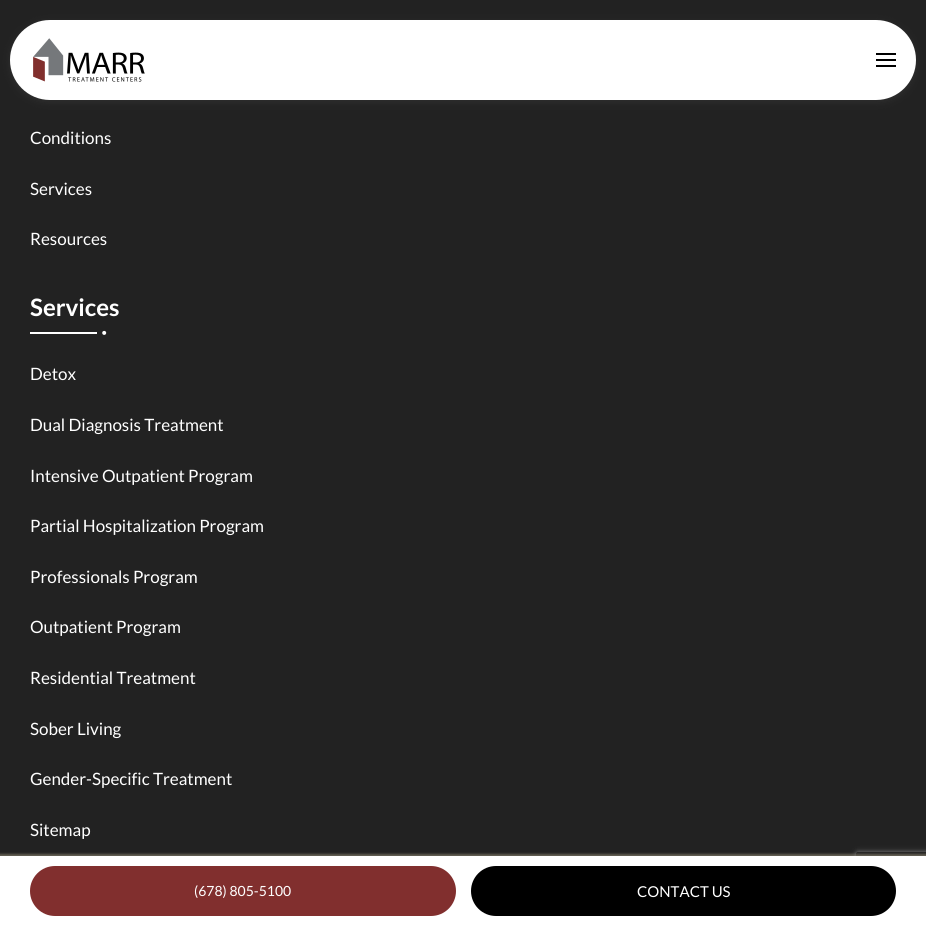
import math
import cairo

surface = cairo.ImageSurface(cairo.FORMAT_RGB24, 926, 926)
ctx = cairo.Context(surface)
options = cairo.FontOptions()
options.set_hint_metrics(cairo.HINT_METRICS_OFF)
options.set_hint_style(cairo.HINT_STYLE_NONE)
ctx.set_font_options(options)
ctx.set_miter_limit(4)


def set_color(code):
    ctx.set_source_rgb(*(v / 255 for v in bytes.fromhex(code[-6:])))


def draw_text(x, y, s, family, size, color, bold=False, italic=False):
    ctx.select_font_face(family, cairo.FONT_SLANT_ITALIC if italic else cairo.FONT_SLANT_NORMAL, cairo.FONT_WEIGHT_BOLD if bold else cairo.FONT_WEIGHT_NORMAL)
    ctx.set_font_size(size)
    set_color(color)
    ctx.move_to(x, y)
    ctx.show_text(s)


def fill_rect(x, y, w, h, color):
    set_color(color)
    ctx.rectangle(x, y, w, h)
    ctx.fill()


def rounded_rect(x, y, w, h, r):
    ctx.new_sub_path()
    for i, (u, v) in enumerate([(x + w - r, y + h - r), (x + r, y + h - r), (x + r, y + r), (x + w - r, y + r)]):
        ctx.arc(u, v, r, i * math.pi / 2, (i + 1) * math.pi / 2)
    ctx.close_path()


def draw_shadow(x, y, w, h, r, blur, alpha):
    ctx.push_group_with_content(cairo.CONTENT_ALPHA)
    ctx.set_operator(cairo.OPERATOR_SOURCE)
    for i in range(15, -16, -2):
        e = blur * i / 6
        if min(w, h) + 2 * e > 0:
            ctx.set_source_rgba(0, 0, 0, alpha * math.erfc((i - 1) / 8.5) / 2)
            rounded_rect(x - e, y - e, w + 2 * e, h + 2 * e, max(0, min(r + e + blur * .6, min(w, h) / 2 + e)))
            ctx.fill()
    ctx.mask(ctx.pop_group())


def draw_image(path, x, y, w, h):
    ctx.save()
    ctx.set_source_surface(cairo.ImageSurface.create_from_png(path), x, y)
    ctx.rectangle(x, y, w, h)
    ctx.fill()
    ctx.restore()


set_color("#222222")
ctx.paint()
set_color("#636363")
draw_shadow(10, 22, 906, 80, 40, 4, 0.2)
set_color("#ffffff")
rounded_rect(10, 20, 906, 80, 40)
ctx.fill()
draw_image("assets/img1.png", 33, 38, 112, 44)
fill_rect(876, 53, 20, 2, "#000000")
fill_rect(876, 59, 20, 2, "#000000")
fill_rect(876, 65, 20, 2, "#000000")
draw_text(30, 144, "Conditions", "Lato", 17, "#ffffff")
draw_text(30, 195, "Services", "Lato", 17, "#ffffff")
draw_text(30, 245, "Resources", "Lato", 17, "#ffffff")
draw_text(30, 316, "Services", "Lato", 24, "#ffffff", bold=True)
fill_rect(30, 332, 67, 2, "#ffffff")
ctx.new_path()
ctx.arc(104.2, 332.9, 2, 0, 2 * math.pi)
ctx.fill()
draw_text(30, 380, "Detox", "Lato", 17, "#ffffff")
draw_text(30, 431, "Dual Diagnosis Treatment", "Lato", 17, "#ffffff")
draw_text(30, 482, "Intensive Outpatient Program", "Lato", 17, "#ffffff")
draw_text(30, 532, "Partial Hospitalization Program", "Lato", 17, "#ffffff")
draw_text(30, 583, "Professionals Program", "Lato", 17, "#ffffff")
draw_text(30, 633, "Outpatient Program", "Lato", 17, "#ffffff")
draw_text(30, 684, "Residential Treatment", "Lato", 17, "#ffffff")
draw_text(30, 735, "Sober Living", "Lato", 17, "#ffffff")
draw_text(30, 785, "Gender-Specific Treatment", "Lato", 17, "#ffffff")
draw_text(30, 836, "Sitemap", "Lato", 17, "#ffffff")
set_color("#a69d84")
draw_shadow(-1, 854, 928, 72, 0, 1, 0.5)
ctx.save()
ctx.set_fill_rule(cairo.FILL_RULE_EVEN_ODD)
ctx.new_path()
ctx.move_to(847, 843)
ctx.line_to(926, 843)
ctx.line_to(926, 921)
ctx.line_to(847, 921)
ctx.close_path()
ctx.move_to(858, 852)
ctx.line_to(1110, 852)
ctx.curve_to(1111, 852, 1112, 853, 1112, 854)
ctx.line_to(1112, 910)
ctx.curve_to(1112, 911, 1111, 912, 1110, 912)
ctx.line_to(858, 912)
ctx.curve_to(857, 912, 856, 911, 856, 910)
ctx.line_to(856, 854)
ctx.curve_to(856, 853, 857, 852, 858, 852)
ctx.close_path()
ctx.clip()
set_color("#808080")
draw_shadow(856, 852, 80, 60, 2, 2.5, 1)
ctx.restore()
fill_rect(0, 856, 926, 70, "#ffffff")
set_color("#812f2e")
rounded_rect(30, 866, 426, 50, 25)
ctx.fill()
draw_text(194, 896, "(678) 805-5100", "Lato", 14, "#ffffff")
set_color("#000000")
rounded_rect(471, 866, 425, 50, 25)
ctx.fill()
draw_text(637, 897, "CONTACT US", "Lato", 15, "#ffffff")
surface.write_to_png("output.png")
